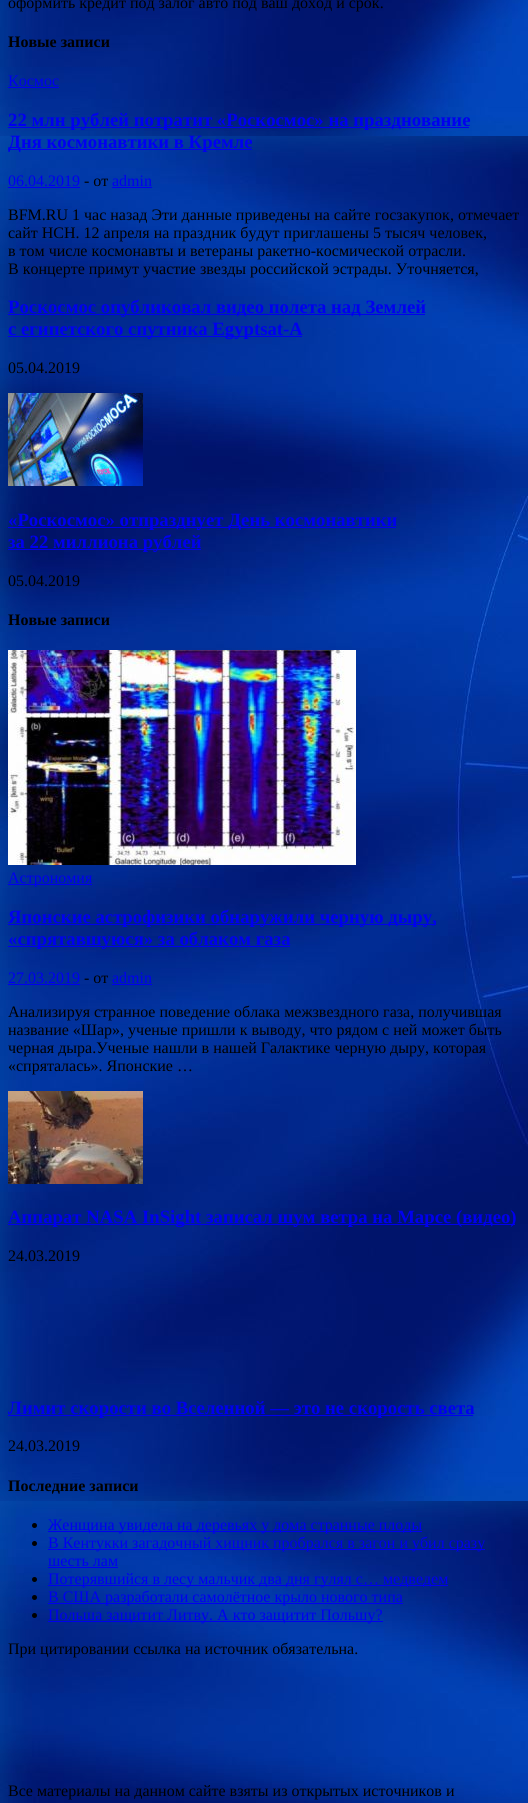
import math
import cairo

surface = cairo.ImageSurface(cairo.FORMAT_RGB24, 528, 1803)
ctx = cairo.Context(surface)
options = cairo.FontOptions()
options.set_hint_metrics(cairo.HINT_METRICS_OFF)
options.set_hint_style(cairo.HINT_STYLE_NONE)
ctx.set_font_options(options)
ctx.set_miter_limit(4)


def set_color(code):
    ctx.set_source_rgb(*(v / 255 for v in bytes.fromhex(code[-6:])))


def draw_text(x, y, s, family, size, color, bold=False, italic=False):
    ctx.select_font_face(family, cairo.FONT_SLANT_ITALIC if italic else cairo.FONT_SLANT_NORMAL, cairo.FONT_WEIGHT_BOLD if bold else cairo.FONT_WEIGHT_NORMAL)
    ctx.set_font_size(size)
    set_color(color)
    ctx.move_to(x, y)
    ctx.show_text(s)


def fill_rect(x, y, w, h, color):
    set_color(color)
    ctx.rectangle(x, y, w, h)
    ctx.fill()


def draw_image(path, x, y, w, h):
    ctx.save()
    ctx.set_source_surface(cairo.ImageSurface.create_from_png(path), x, y)
    ctx.rectangle(x, y, w, h)
    ctx.fill()
    ctx.restore()


set_color("#ffffff")
ctx.paint()
draw_image("assets/img1.png", 0, 0, 528, 1803)
draw_text(8, 8, "оформить кредит под залог авто под ваш доход и срок.", "Liberation Serif", 16, "#000000")
draw_text(8, 47, "Новые записи", "Liberation Serif", 16, "#000000", bold=True)
draw_text(8, 86, "Космос", "Liberation Serif", 16, "#0000ee")
fill_rect(8, 87, 51, 1, "#0000ee")
fill_rect(8, 127, 461, 1, "#0000ee")
draw_text(8, 126, "22 млн рублей потратит «Роскосмос» на празднование", "Liberation Serif", 18.75, "#0000ee", bold=True)
fill_rect(8, 149, 244, 1, "#0000ee")
draw_text(8, 148, "Дня космонавтики в Кремле", "Liberation Serif", 18.75, "#0000ee", bold=True)
draw_text(8, 186, "06.04.2019", "Liberation Serif", 16, "#0000ee")
fill_rect(8, 187, 72, 1, "#0000ee")
draw_text(84, 186, "- от", "Liberation Serif", 16, "#000000")
draw_text(112, 186, "admin", "Liberation Serif", 16, "#0000ee")
fill_rect(112, 187, 40, 1, "#0000ee")
draw_text(8, 220, "BFM.RU 1 час назад Эти данные приведены на сайте госзакупок, отмечает", "Liberation Serif", 16, "#000000")
draw_text(8, 238, "сайт НСН. 12 апреля на праздник будут приглашены 5 тысяч человек,", "Liberation Serif", 16, "#000000")
draw_text(8, 256, "в том числе космонавты и ветераны ракетно-космической отрасли.", "Liberation Serif", 16, "#000000")
draw_text(8, 274, "В концерте примут участие звезды российской эстрады. Уточняется,", "Liberation Serif", 16, "#000000")
fill_rect(8, 314, 417, 1, "#0000ee")
draw_text(8, 313, "Роскосмос опубликовал видео полета над Землей", "Liberation Serif", 18.75, "#0000ee", bold=True)
fill_rect(8, 336, 294, 1, "#0000ee")
draw_text(8, 335, "с египетского спутника Egyptsat-A", "Liberation Serif", 18.75, "#0000ee", bold=True)
draw_text(8, 373, "05.04.2019", "Liberation Serif", 16, "#000000")
draw_image("assets/img2.png", 8, 393, 135, 93)
fill_rect(8, 527, 388, 1, "#0000ee")
draw_text(8, 526, "«Роскосмос» отпразднует День космонавтики", "Liberation Serif", 18.75, "#0000ee", bold=True)
fill_rect(8, 549, 193, 1, "#0000ee")
draw_text(8, 548, "за 22 миллиона рублей", "Liberation Serif", 18.75, "#0000ee", bold=True)
draw_text(8, 586, "05.04.2019", "Liberation Serif", 16, "#000000")
draw_text(8, 625, "Новые записи", "Liberation Serif", 16, "#000000", bold=True)
draw_image("assets/img3.png", 8, 650, 348, 215)
fill_rect(8, 884, 84, 1, "#0000ee")
draw_text(8, 883, "Астрономия", "Liberation Serif", 16, "#0000ee")
fill_rect(8, 924, 428, 1, "#0000ee")
draw_text(8, 923, "Японские астрофизики обнаружили черную дыру,", "Liberation Serif", 18.75, "#0000ee", bold=True)
fill_rect(8, 946, 282, 1, "#0000ee")
draw_text(8, 945, "«спрятавшуюся» за облаком газа", "Liberation Serif", 18.75, "#0000ee", bold=True)
draw_text(8, 983, "27.03.2019", "Liberation Serif", 16, "#0000ee")
fill_rect(8, 984, 72, 1, "#0000ee")
draw_text(84, 983, "- от", "Liberation Serif", 16, "#000000")
draw_text(112, 983, "admin", "Liberation Serif", 16, "#0000ee")
fill_rect(112, 984, 40, 1, "#0000ee")
draw_text(8, 1017, "Анализируя странное поведение облака межзвездного газа, получившая", "Liberation Serif", 16, "#000000")
draw_text(8, 1035, "название «Шар», ученые пришли к выводу, что рядом с ней может быть", "Liberation Serif", 16, "#000000")
draw_text(8, 1053, "черная дыра.Ученые нашли в нашей Галактике черную дыру, которая", "Liberation Serif", 16, "#000000")
draw_text(8, 1071, "«спряталась». Японские …", "Liberation Serif", 16, "#000000")
draw_image("assets/img4.png", 8, 1091, 135, 93)
fill_rect(8, 1224, 507, 1, "#0000ee")
draw_text(8, 1223, "Аппарат NASA InSight записал шум ветра на Марсе (видео)", "Liberation Serif", 18.75, "#0000ee", bold=True)
draw_text(8, 1261, "24.03.2019", "Liberation Serif", 16, "#000000")
fill_rect(8, 1415, 465, 1, "#0000ee")
draw_text(8, 1414, "Лимит скорости во Вселенной — это не скорость света", "Liberation Serif", 18.75, "#0000ee", bold=True)
draw_text(8, 1451, "24.03.2019", "Liberation Serif", 16, "#000000")
draw_text(8, 1491, "Последние записи", "Liberation Serif", 16, "#000000", bold=True)
ctx.new_path()
ctx.arc(34.5, 1525.5, 2.5, 0, 2 * math.pi)
ctx.fill()
fill_rect(48, 1531, 374, 1, "#0000ee")
draw_text(48, 1530, "Женщина увидела на деревьях у дома странные плоды", "Liberation Serif", 16, "#0000ee")
set_color("#000000")
ctx.new_path()
ctx.arc(34.5, 1543.5, 2.5, 0, 2 * math.pi)
ctx.fill()
fill_rect(48, 1549, 437, 1, "#0000ee")
draw_text(48, 1548, "В Кентукки загадочный хищник пробрался в загон и убил сразу", "Liberation Serif", 16, "#0000ee")
draw_text(48, 1566, "шесть лам", "Liberation Serif", 16, "#0000ee")
fill_rect(48, 1567, 70, 1, "#0000ee")
set_color("#000000")
ctx.new_path()
ctx.arc(34.5, 1579.5, 2.5, 0, 2 * math.pi)
ctx.fill()
fill_rect(48, 1585, 400, 1, "#0000ee")
draw_text(48, 1584, "Потерявшийся в лесу мальчик два дня гулял с… медведем", "Liberation Serif", 16, "#0000ee")
set_color("#000000")
ctx.new_path()
ctx.arc(34.5, 1597.5, 2.5, 0, 2 * math.pi)
ctx.fill()
fill_rect(48, 1603, 355, 1, "#0000ee")
draw_text(48, 1602, "В США разработали самолётное крыло нового типа", "Liberation Serif", 16, "#0000ee")
set_color("#000000")
ctx.new_path()
ctx.arc(34.5, 1615.5, 2.5, 0, 2 * math.pi)
ctx.fill()
fill_rect(48, 1621, 335, 1, "#0000ee")
draw_text(48, 1620, "Польша защитит Литву. А кто защитит Польшу?", "Liberation Serif", 16, "#0000ee")
draw_text(8, 1654, "При цитировании ссылка на источник обязательна.", "Liberation Serif", 16, "#000000")
draw_text(8, 1796, "Все материалы на данном сайте взяты из открытых источников и", "Liberation Serif", 16, "#000000")
surface.write_to_png("output.png")
